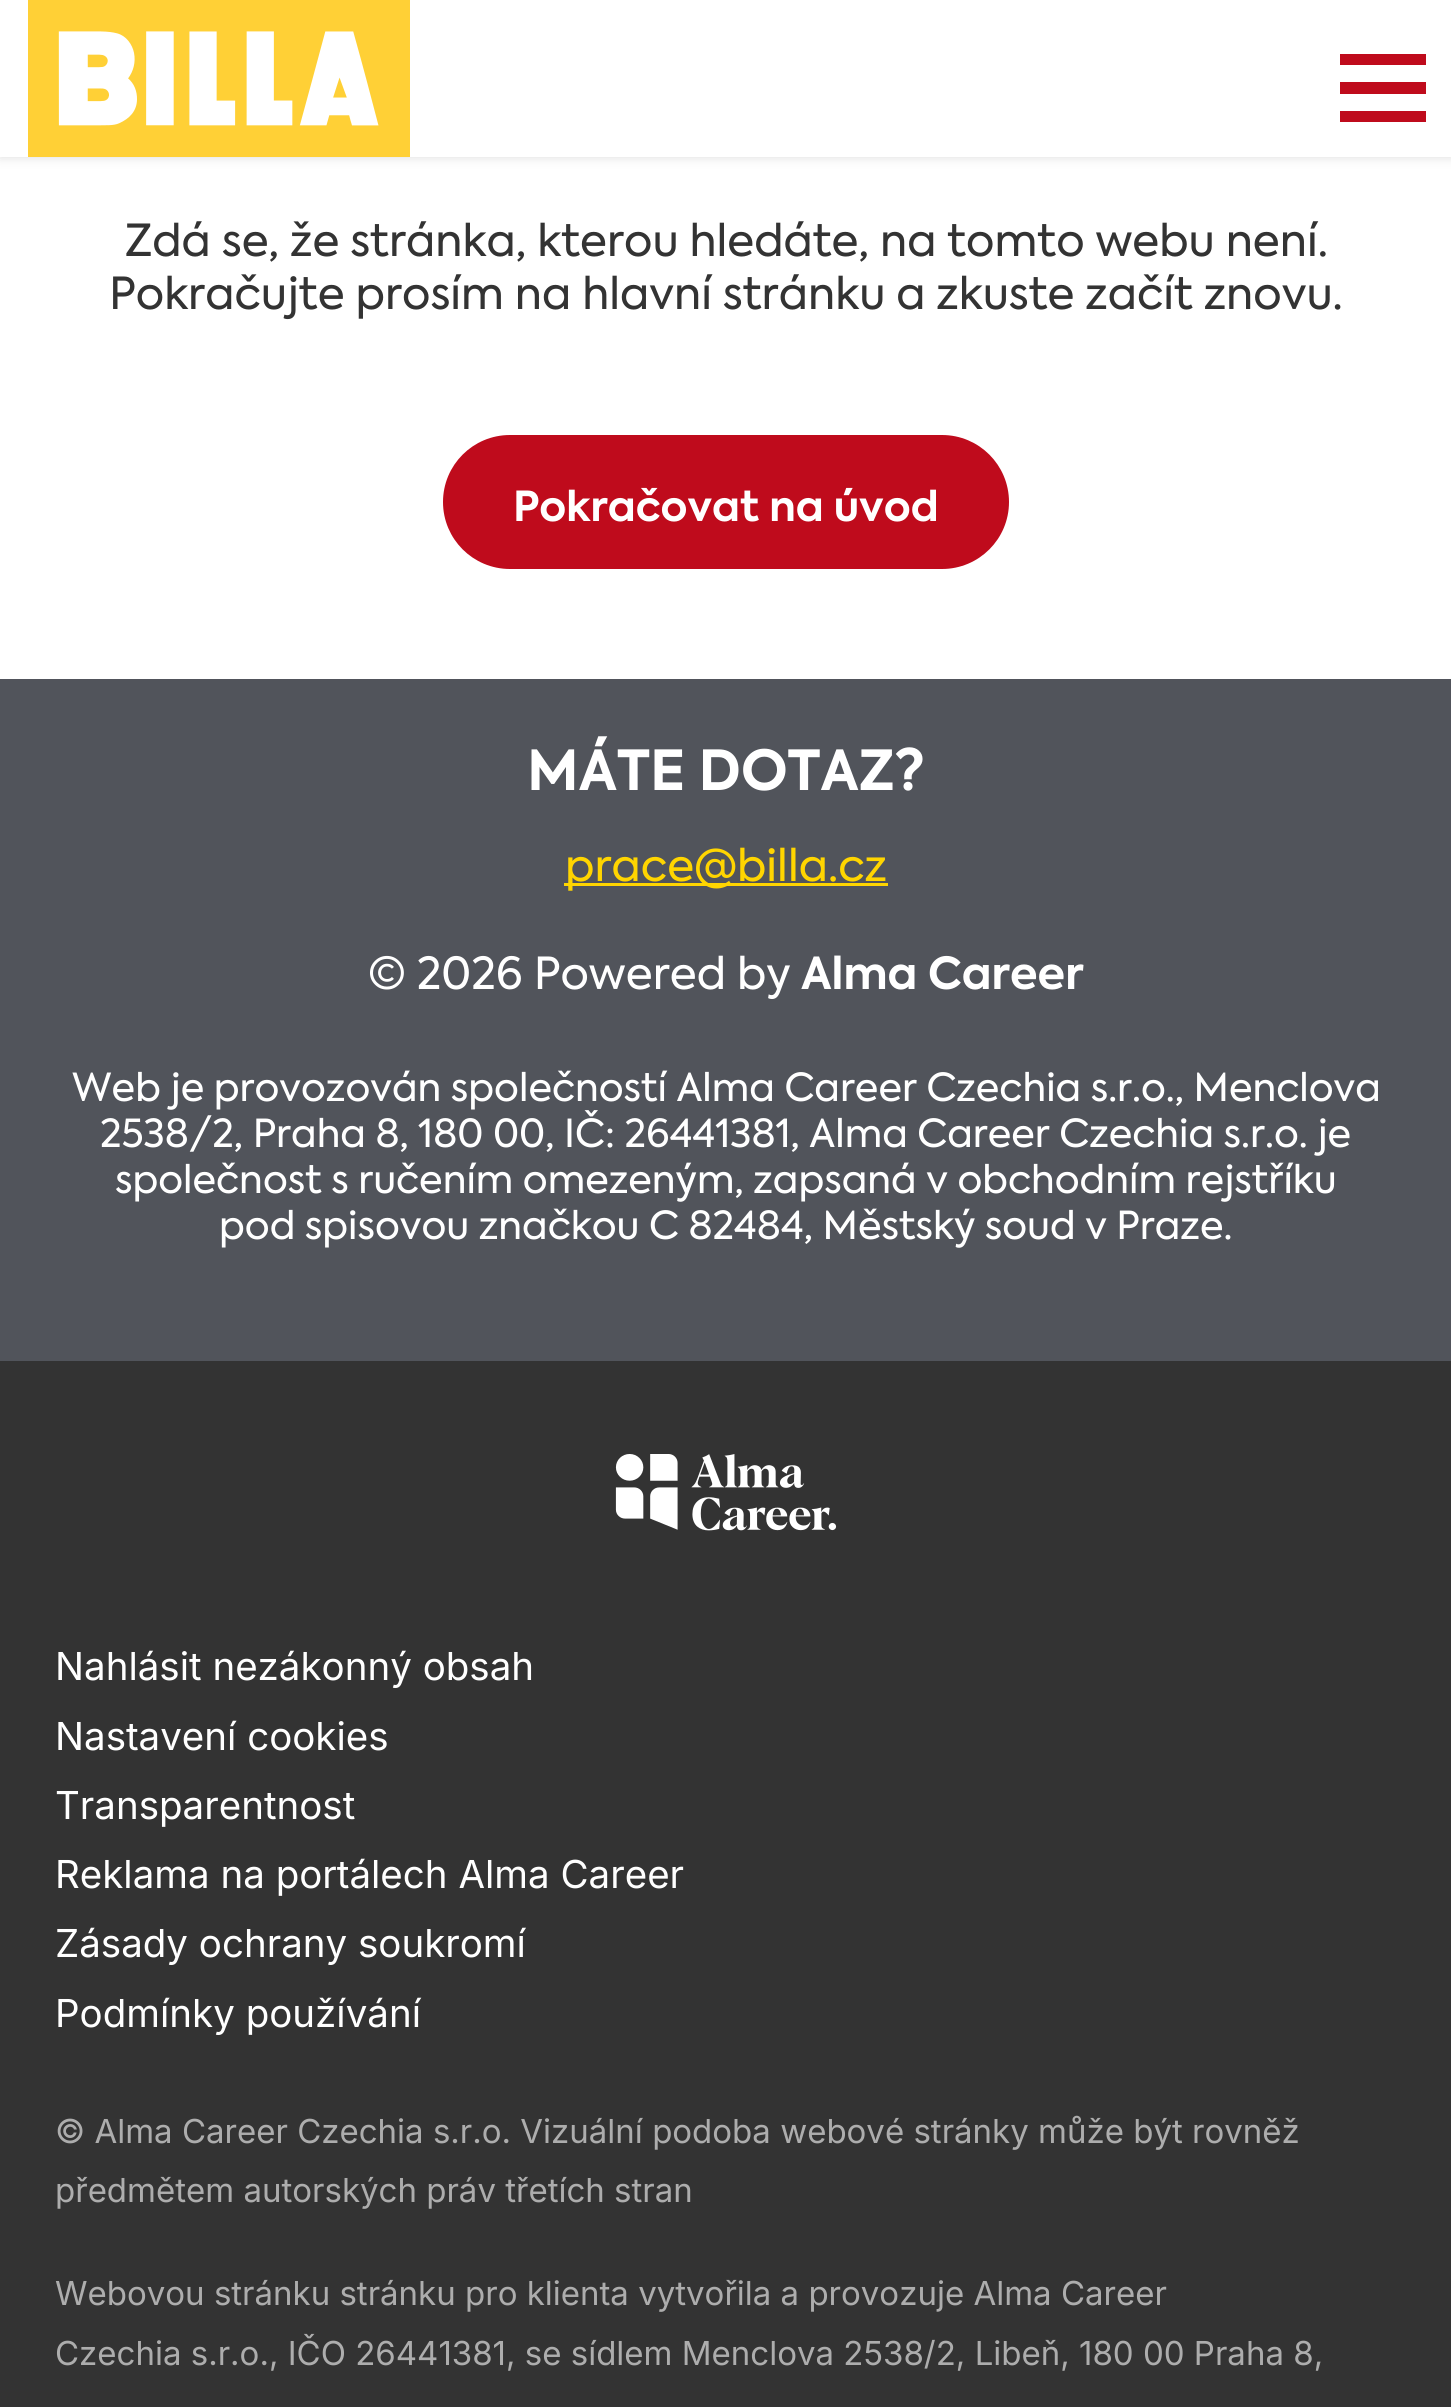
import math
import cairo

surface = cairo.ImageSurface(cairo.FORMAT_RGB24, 1451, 2407)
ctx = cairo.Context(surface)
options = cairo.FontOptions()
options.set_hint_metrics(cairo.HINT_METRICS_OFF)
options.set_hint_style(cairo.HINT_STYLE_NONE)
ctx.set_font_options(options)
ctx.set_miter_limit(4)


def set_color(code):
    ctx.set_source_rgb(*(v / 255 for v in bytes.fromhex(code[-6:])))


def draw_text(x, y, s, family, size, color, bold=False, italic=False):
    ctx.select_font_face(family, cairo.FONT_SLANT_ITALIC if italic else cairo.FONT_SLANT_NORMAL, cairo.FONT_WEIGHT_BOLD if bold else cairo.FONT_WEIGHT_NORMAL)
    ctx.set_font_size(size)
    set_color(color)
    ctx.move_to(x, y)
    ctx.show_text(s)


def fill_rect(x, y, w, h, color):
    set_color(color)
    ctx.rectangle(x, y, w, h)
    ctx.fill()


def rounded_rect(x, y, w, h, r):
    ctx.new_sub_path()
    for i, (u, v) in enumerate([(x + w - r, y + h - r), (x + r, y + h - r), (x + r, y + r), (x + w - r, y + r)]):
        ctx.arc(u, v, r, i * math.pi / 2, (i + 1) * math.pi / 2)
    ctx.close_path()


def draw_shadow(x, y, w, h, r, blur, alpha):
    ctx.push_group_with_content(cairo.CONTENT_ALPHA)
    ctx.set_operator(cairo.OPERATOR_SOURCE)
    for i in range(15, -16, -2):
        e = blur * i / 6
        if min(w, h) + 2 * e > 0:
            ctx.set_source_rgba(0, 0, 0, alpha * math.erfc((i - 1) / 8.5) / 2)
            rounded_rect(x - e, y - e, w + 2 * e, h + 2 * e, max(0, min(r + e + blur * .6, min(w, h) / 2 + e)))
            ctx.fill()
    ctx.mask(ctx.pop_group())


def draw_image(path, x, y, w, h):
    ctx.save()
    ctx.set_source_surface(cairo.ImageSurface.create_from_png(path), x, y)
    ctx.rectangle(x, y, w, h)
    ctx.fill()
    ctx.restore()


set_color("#ffffff")
ctx.paint()
set_color("#dcdcdc")
draw_shadow(0, 0, 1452, 157, 0, 5.5, 1)
fill_rect(0, 0, 1451, 157, "#ffffff")
draw_image("assets/img1.png", 28, 0, 382, 157)
fill_rect(1340, 54, 86, 11, "#bf0b1c")
fill_rect(1340, 82, 86, 12, "#bf0b1c")
fill_rect(1340, 111, 86, 11, "#bf0b1c")
draw_text(125, 256, "Zdá se, že stránka, kterou hledáte, na tomto webu není.", "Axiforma", 44, "#333333")
draw_text(109, 309, "Pokračujte prosím na hlavní stránku a zkuste začít znovu.", "Axiforma", 44, "#333333")
set_color("#bf0b1c")
rounded_rect(447, 439, 558, 126, 63)
ctx.fill_preserve()
ctx.set_line_width(8)
ctx.stroke()
draw_text(513, 521, "Pokračovat na úvod", "Axiforma", 41.25, "#ffffff", bold=True)
fill_rect(0, 679, 1451, 682, "#51545b")
draw_text(527, 790, "MÁTE DOTAZ?", "Axiforma", 55, "#ffffff", bold=True)
fill_rect(564, 883, 324, 3, "#ffd500")
draw_text(565, 881, "prace@billa.cz", "Axiforma", 44, "#ffd500")
draw_text(368, 989, "© 2026 Powered by", "Axiforma", 44, "#ffffff")
draw_text(801, 989, "Alma Career", "Axiforma", 44, "#ffffff", bold=True)
draw_text(72, 1101, "Web je provozován společností Alma Career Czechia s.r.o., Menclova", "Axiforma", 38.5, "#ffffff")
draw_text(100, 1147, "2538/2, Praha 8, 180 00, IČ: 26441381, Alma Career Czechia s.r.o. je", "Axiforma", 38.5, "#ffffff")
draw_text(115, 1193, "společnost s ručením omezeným, zapsaná v obchodním rejstříku", "Axiforma", 38.5, "#ffffff")
draw_text(219, 1239, "pod spisovou značkou C 82484, Městský soud v Praze.", "Axiforma", 38.5, "#ffffff")
fill_rect(0, 1361, 1451, 1046, "#333333")
draw_image("assets/img2.png", 615, 1454, 222, 77)
draw_text(55, 1680, "Nahlásit nezákonný obsah", "Inter", 38.5, "#ffffff")
draw_text(55, 1750, "Nastavení cookies", "Inter", 38.5, "#ffffff")
draw_text(55, 1819, "Transparentnost", "Inter", 38.5, "#ffffff")
draw_text(55, 1888, "Reklama na portálech Alma Career", "Inter", 38.5, "#ffffff")
draw_text(55, 1957, "Zásady ochrany soukromí", "Inter", 38.5, "#ffffff")
draw_text(55, 2027, "Podmínky používání", "Inter", 38.5, "#ffffff")
draw_text(55, 2143, "© Alma Career Czechia s.r.o. Vizuální podoba webové stránky může být rovněž", "Inter", 33, "#adadad")
draw_text(55, 2202, "předmětem autorských práv třetích stran", "Inter", 33, "#adadad")
draw_text(55, 2305, "Webovou stránku stránku pro klienta vytvořila a provozuje Alma Career", "Inter", 33, "#adadad")
draw_text(55, 2365, "Czechia s.r.o., IČO 26441381, se sídlem Menclova 2538/2, Libeň, 180 00 Praha 8,", "Inter", 33, "#adadad")
surface.write_to_png("output.png")
